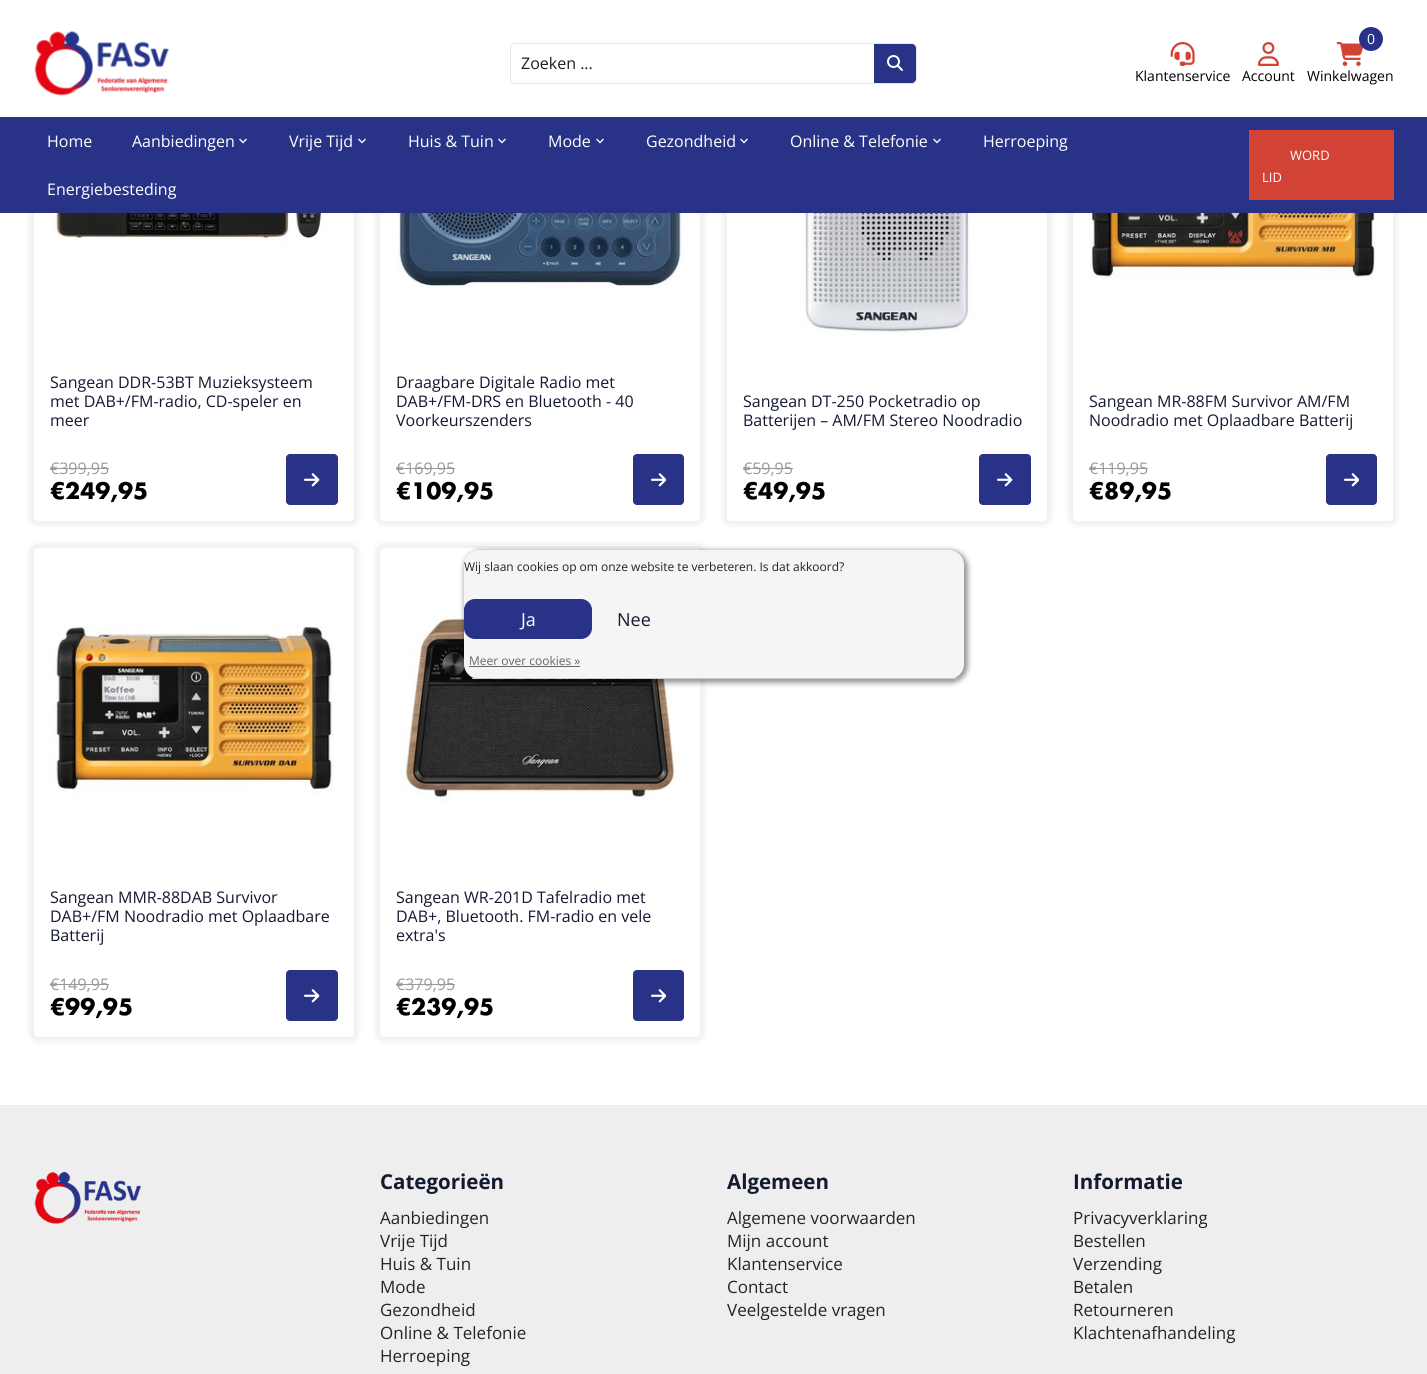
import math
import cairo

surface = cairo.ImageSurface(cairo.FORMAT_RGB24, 1427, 1374)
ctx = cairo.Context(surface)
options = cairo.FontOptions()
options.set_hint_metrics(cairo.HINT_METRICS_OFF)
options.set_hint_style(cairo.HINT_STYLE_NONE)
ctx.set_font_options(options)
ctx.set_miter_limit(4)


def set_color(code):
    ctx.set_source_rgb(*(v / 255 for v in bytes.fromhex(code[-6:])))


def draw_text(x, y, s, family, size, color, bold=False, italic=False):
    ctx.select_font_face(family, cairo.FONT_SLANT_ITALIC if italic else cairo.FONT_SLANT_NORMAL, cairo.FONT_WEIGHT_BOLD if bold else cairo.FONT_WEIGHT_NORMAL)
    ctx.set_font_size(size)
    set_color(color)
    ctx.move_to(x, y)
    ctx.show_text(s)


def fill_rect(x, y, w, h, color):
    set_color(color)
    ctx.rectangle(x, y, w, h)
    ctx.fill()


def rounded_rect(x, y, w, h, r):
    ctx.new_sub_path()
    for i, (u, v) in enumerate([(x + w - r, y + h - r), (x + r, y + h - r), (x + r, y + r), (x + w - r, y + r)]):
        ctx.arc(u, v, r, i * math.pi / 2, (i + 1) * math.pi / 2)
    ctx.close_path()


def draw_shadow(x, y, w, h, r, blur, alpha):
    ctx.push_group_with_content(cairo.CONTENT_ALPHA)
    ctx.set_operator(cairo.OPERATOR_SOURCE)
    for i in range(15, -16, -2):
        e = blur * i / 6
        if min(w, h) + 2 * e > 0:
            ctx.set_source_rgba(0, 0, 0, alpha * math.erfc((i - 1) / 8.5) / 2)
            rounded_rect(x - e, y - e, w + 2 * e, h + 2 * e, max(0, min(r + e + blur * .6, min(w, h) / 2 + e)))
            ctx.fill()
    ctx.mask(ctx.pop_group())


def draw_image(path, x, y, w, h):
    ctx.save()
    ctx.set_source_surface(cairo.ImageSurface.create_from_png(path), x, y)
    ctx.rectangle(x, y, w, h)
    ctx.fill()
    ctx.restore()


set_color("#ffffff")
ctx.paint()
set_color("#000000")
draw_shadow(29, 27, 330, 499, 9, 2.5, 0.06)
set_color("#ffffff")
rounded_rect(34, 32, 320, 489, 4)
ctx.fill()
set_color("#000000")
draw_shadow(375, 27, 330, 499, 9, 2.5, 0.06)
set_color("#ffffff")
rounded_rect(380, 32, 320, 489, 4)
ctx.fill()
set_color("#000000")
draw_shadow(722, 27, 330, 499, 9, 2.5, 0.06)
set_color("#ffffff")
rounded_rect(727, 32, 320, 489, 4)
ctx.fill()
set_color("#000000")
draw_shadow(1068, 27, 330, 499, 9, 2.5, 0.06)
set_color("#ffffff")
rounded_rect(1073, 32, 320, 489, 4)
ctx.fill()
fill_rect(27, 25, 1373, 92, "#ffffff")
draw_image("assets/img1.png", 34, 31, 136, 65)
rounded_rect(510.5, 43.5, 406, 40, 3.5)
set_color("#e6e6e6")
ctx.set_line_width(1)
ctx.stroke()
draw_text(521, 69, "Zoeken ...", "Open Sans", 16, "#1c1c21")
set_color("#283387")
ctx.new_path()
ctx.move_to(874, 44)
ctx.line_to(912, 44)
ctx.curve_to(914, 44, 916, 46, 916, 48)
ctx.line_to(916, 79)
ctx.curve_to(916, 81, 914, 83, 912, 83)
ctx.line_to(874, 83)
ctx.close_path()
ctx.fill()
draw_image("assets/img2.png", 887, 55, 16, 16)
draw_image("assets/img3.png", 1170, 42, 25, 24)
draw_text(1135, 81, "Klantenservice", "Open Sans", 14, "#000000")
draw_image("assets/img4.png", 1257, 42, 22, 24)
draw_text(1242, 81, "Account", "Open Sans", 14, "#000000")
draw_image("assets/img5.png", 1336, 42, 28, 24)
set_color("#283387")
ctx.arc(1371, 39, 12, 0, 2 * math.pi)
ctx.fill()
draw_text(1367, 44, "0", "Open Sans", 14, "#ffffff")
draw_text(1307, 81, "Winkelwagen", "Open Sans", 14, "#000000")
fill_rect(0, 117, 1427, 96, "#283387")
draw_text(47, 147, "Home", "Open Sans", 16, "#ffffff")
draw_text(132, 147, "Aanbiedingen", "Open Sans", 16, "#ffffff")
draw_image("assets/img6.png", 239, 138, 8, 6)
draw_text(289, 147, "Vrije Tijd", "Open Sans", 16, "#ffffff")
draw_image("assets/img6.png", 358, 138, 8, 6)
draw_text(408, 147, "Huis & Tuin", "Open Sans", 16, "#ffffff")
draw_image("assets/img6.png", 498, 138, 8, 6)
draw_text(548, 147, "Mode", "Open Sans", 16, "#ffffff")
draw_image("assets/img6.png", 596, 138, 8, 6)
draw_text(646, 147, "Gezondheid", "Open Sans", 16, "#ffffff")
draw_image("assets/img6.png", 740, 138, 8, 6)
draw_text(790, 147, "Online & Telefonie", "Open Sans", 16, "#ffffff")
draw_image("assets/img6.png", 933, 138, 8, 6)
draw_text(983, 147, "Herroeping", "Open Sans", 16, "#ffffff")
draw_text(47, 195, "Energiebesteding", "Open Sans", 16, "#ffffff")
fill_rect(1249, 130, 145, 70, "#d24335")
draw_text(1290, 160, "WORD", "Open Sans", 13, "#ffffff")
draw_text(1262, 182, "LID", "Open Sans", 13, "#ffffff")
draw_image("assets/img7.png", 50, 213, 288, 124)
draw_text(50, 388, "Sangean DDR-53BT Muzieksysteem", "Open Sans", 16, "#141932")
draw_text(50, 407, "met DAB+/FM-radio, CD-speler en", "Open Sans", 16, "#141932")
draw_text(50, 426, "meer", "Open Sans", 16, "#141932")
draw_text(50, 474, "€399,95", "Open Sans", 16, "#999999")
fill_rect(50, 468, 59, 1, "#999999")
draw_text(50, 499, "€249,95", "Futura", 22, "#000000", bold=True)
set_color("#283387")
rounded_rect(286, 454, 52, 51, 4)
ctx.fill()
draw_image("assets/img8.png", 304, 473, 16, 14)
draw_image("assets/img9.png", 396, 213, 288, 124)
draw_text(396, 388, "Draagbare Digitale Radio met", "Open Sans", 16, "#141932")
draw_text(396, 407, "DAB+/FM-DRS en Bluetooth - 40", "Open Sans", 16, "#141932")
draw_text(396, 426, "Voorkeurszenders", "Open Sans", 16, "#141932")
draw_text(396, 474, "€169,95", "Open Sans", 16, "#999999")
fill_rect(396, 468, 59, 1, "#999999")
draw_text(396, 499, "€109,95", "Futura", 22, "#000000", bold=True)
set_color("#283387")
rounded_rect(633, 454, 51, 51, 4)
ctx.fill()
draw_image("assets/img10.png", 651, 473, 15, 14)
draw_image("assets/img11.png", 743, 213, 288, 124)
draw_text(743, 407, "Sangean DT-250 Pocketradio op", "Open Sans", 16, "#141932")
draw_text(743, 426, "Batterijen – AM/FM Stereo Noodradio", "Open Sans", 16, "#141932")
draw_text(743, 474, "€59,95", "Open Sans", 16, "#999999")
fill_rect(743, 468, 50, 1, "#999999")
draw_text(743, 499, "€49,95", "Futura", 22, "#000000", bold=True)
set_color("#283387")
rounded_rect(979, 454, 52, 51, 4)
ctx.fill()
draw_image("assets/img8.png", 997, 473, 16, 14)
draw_image("assets/img12.png", 1089, 213, 288, 124)
draw_text(1089, 407, "Sangean MR-88FM Survivor AM/FM", "Open Sans", 16, "#141932")
draw_text(1089, 426, "Noodradio met Oplaadbare Batterij", "Open Sans", 16, "#141932")
draw_text(1089, 474, "€119,95", "Open Sans", 16, "#999999")
fill_rect(1089, 468, 59, 1, "#999999")
draw_text(1089, 499, "€89,95", "Futura", 22, "#000000", bold=True)
set_color("#283387")
rounded_rect(1326, 454, 51, 51, 4)
ctx.fill()
draw_image("assets/img10.png", 1344, 473, 15, 14)
set_color("#000000")
draw_shadow(29, 543, 330, 499, 9, 2.5, 0.06)
set_color("#ffffff")
rounded_rect(34, 548, 320, 489, 4)
ctx.fill()
draw_image("assets/img13.png", 50, 564, 288, 288)
draw_text(50, 903, "Sangean MMR-88DAB Survivor", "Open Sans", 16, "#141932")
draw_text(50, 922, "DAB+/FM Noodradio met Oplaadbare", "Open Sans", 16, "#141932")
draw_text(50, 941, "Batterij", "Open Sans", 16, "#141932")
draw_text(50, 990, "€149,95", "Open Sans", 16, "#999999")
fill_rect(50, 984, 59, 1, "#999999")
draw_text(50, 1015, "€99,95", "Futura", 22, "#000000", bold=True)
set_color("#283387")
rounded_rect(286, 970, 52, 51, 4)
ctx.fill()
draw_image("assets/img8.png", 304, 989, 16, 14)
set_color("#000000")
draw_shadow(375, 543, 330, 499, 9, 2.5, 0.06)
set_color("#ffffff")
rounded_rect(380, 548, 320, 489, 4)
ctx.fill()
draw_image("assets/img14.png", 396, 564, 288, 288)
draw_text(396, 903, "Sangean WR-201D Tafelradio met", "Open Sans", 16, "#141932")
draw_text(396, 922, "DAB+, Bluetooth. FM-radio en vele", "Open Sans", 16, "#141932")
draw_text(396, 941, "extra's", "Open Sans", 16, "#141932")
draw_text(396, 990, "€379,95", "Open Sans", 16, "#999999")
fill_rect(396, 984, 59, 1, "#999999")
draw_text(396, 1015, "€239,95", "Futura", 22, "#000000", bold=True)
set_color("#283387")
rounded_rect(633, 970, 51, 51, 4)
ctx.fill()
draw_image("assets/img10.png", 651, 989, 15, 14)
set_color("#000000")
draw_shadow(464, 550, 504, 133, 17, 2.5, 0.4)
set_color("#f5f5f5")
rounded_rect(464, 550, 500, 129, 15)
ctx.fill()
fill_rect(472, 678, 485, 1, "#cccccc")
draw_text(464, 571, "Wij slaan cookies op om onze website te verbeteren. Is dat akkoord?", "Open Sans", 12, "#222222")
set_color("#283387")
rounded_rect(464.5, 599.5, 127, 39, 10.5)
ctx.fill_preserve()
ctx.stroke()
draw_text(521, 626, "Ja", "Open Sans", 18, "#ffffff")
draw_text(617, 626, "Nee", "Open Sans", 18, "#141932")
draw_text(469, 665, "Meer over cookies »", "Open Sans", 12, "#666666")
fill_rect(469, 666, 111, 1, "#666666")
fill_rect(0, 1105, 1427, 269, "#eeeeee")
draw_image("assets/img15.png", 34, 1171, 107, 53)
draw_text(380, 1189, "Categorieën", "Open Sans", 20.5, "#141932", bold=True)
draw_text(380, 1224, "Aanbiedingen", "Open Sans", 17, "#212529")
draw_text(380, 1247, "Vrije Tijd", "Open Sans", 17, "#212529")
draw_text(380, 1270, "Huis & Tuin", "Open Sans", 17, "#212529")
draw_text(380, 1293, "Mode", "Open Sans", 17, "#212529")
draw_text(380, 1316, "Gezondheid", "Open Sans", 17, "#212529")
draw_text(380, 1339, "Online & Telefonie", "Open Sans", 17, "#212529")
draw_text(380, 1362, "Herroeping", "Open Sans", 17, "#212529")
draw_text(727, 1189, "Algemeen", "Open Sans", 20.5, "#141932", bold=True)
draw_text(727, 1224, "Algemene voorwaarden", "Open Sans", 17, "#212529")
draw_text(727, 1247, "Mijn account", "Open Sans", 17, "#212529")
draw_text(727, 1270, "Klantenservice", "Open Sans", 17, "#212529")
draw_text(727, 1293, "Contact", "Open Sans", 17, "#212529")
draw_text(727, 1316, "Veelgestelde vragen", "Open Sans", 17, "#212529")
draw_text(1073, 1189, "Informatie", "Open Sans", 20.5, "#141932", bold=True)
draw_text(1073, 1224, "Privacyverklaring", "Open Sans", 17, "#212529")
draw_text(1073, 1247, "Bestellen", "Open Sans", 17, "#212529")
draw_text(1073, 1270, "Verzending", "Open Sans", 17, "#212529")
draw_text(1073, 1293, "Betalen", "Open Sans", 17, "#212529")
draw_text(1073, 1316, "Retourneren", "Open Sans", 17, "#212529")
draw_text(1073, 1339, "Klachtenafhandeling", "Open Sans", 17, "#212529")
surface.write_to_png("output.png")
